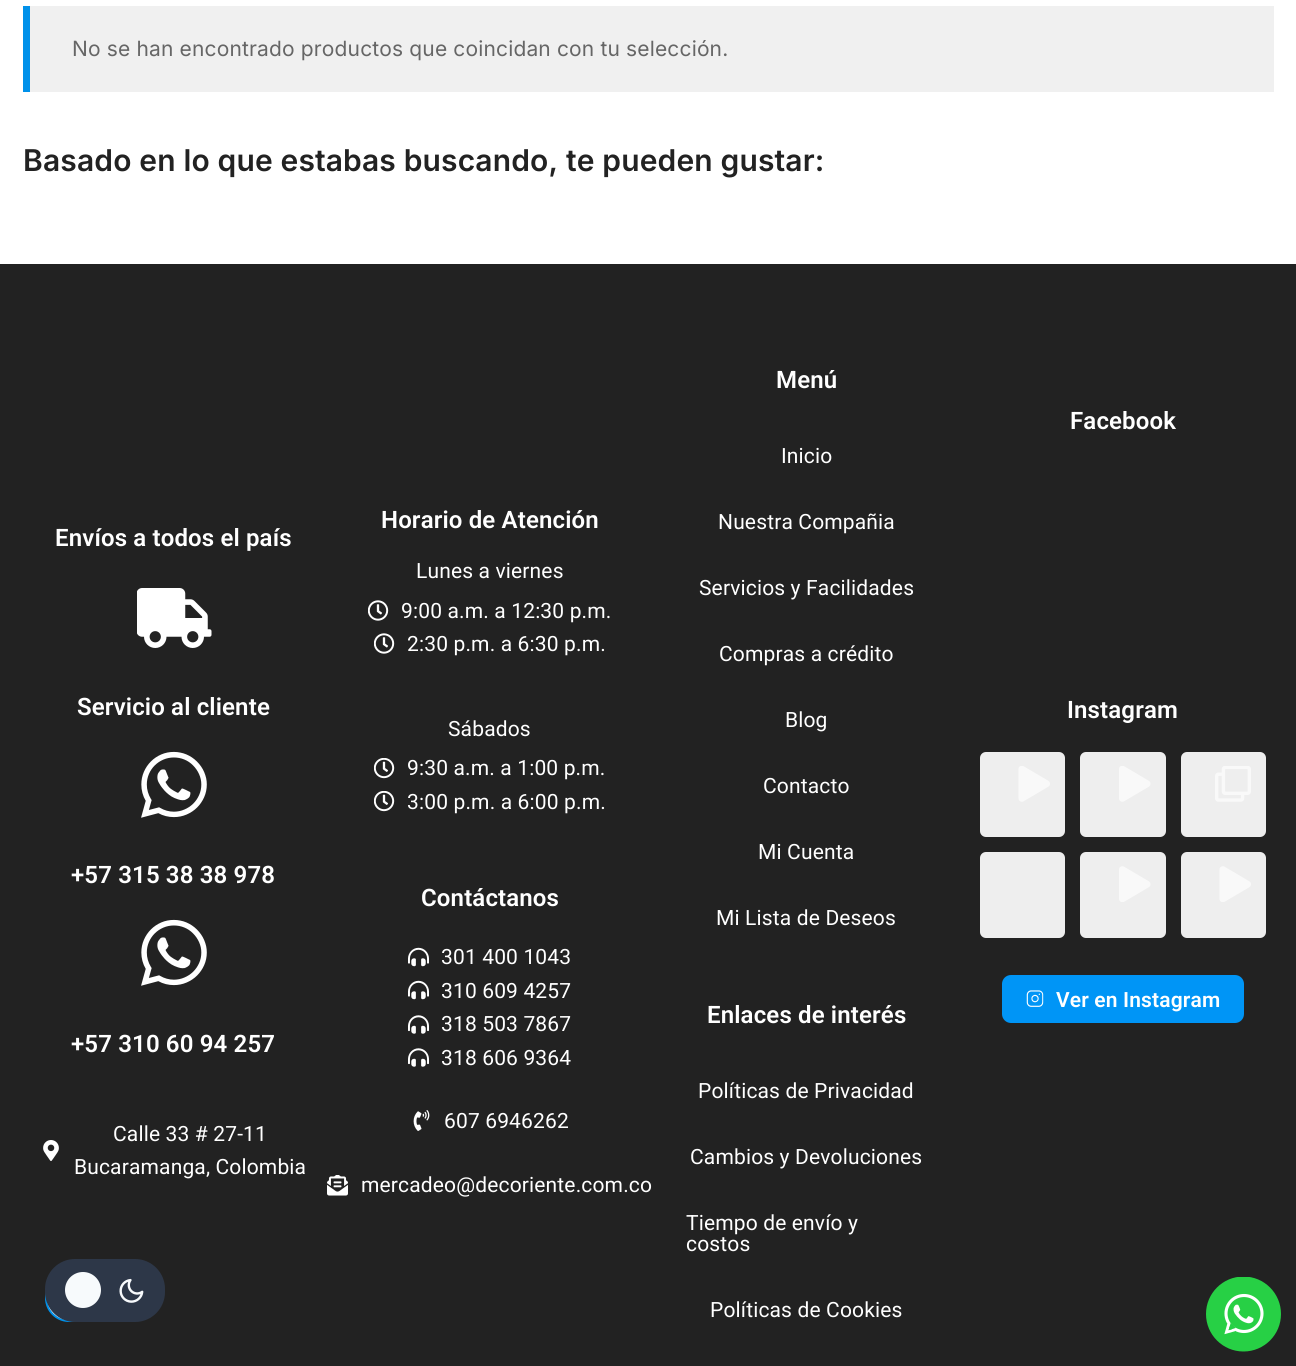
import math
import cairo

surface = cairo.ImageSurface(cairo.FORMAT_RGB24, 1296, 1366)
ctx = cairo.Context(surface)
options = cairo.FontOptions()
options.set_hint_metrics(cairo.HINT_METRICS_OFF)
options.set_hint_style(cairo.HINT_STYLE_NONE)
ctx.set_font_options(options)
ctx.set_miter_limit(4)


def set_color(code):
    ctx.set_source_rgb(*(v / 255 for v in bytes.fromhex(code[-6:])))


def draw_spaced(x, y, s, letter, word):
    ctx.move_to(x, y)
    for ch in s:
        ctx.show_text(ch)
        ctx.rel_move_to(letter + word * (ch == ' '), 0)


def fill_rect(x, y, w, h, color):
    set_color(color)
    ctx.rectangle(x, y, w, h)
    ctx.fill()


def rounded_rect(x, y, w, h, r):
    ctx.new_sub_path()
    for i, (u, v) in enumerate([(x + w - r, y + h - r), (x + r, y + h - r), (x + r, y + r), (x + w - r, y + r)]):
        ctx.arc(u, v, r, i * math.pi / 2, (i + 1) * math.pi / 2)
    ctx.close_path()


def draw_image(path, x, y, w, h):
    ctx.save()
    ctx.set_source_surface(cairo.ImageSurface.create_from_png(path), x, y)
    ctx.rectangle(x, y, w, h)
    ctx.fill()
    ctx.restore()


set_color("#ffffff")
ctx.paint()
fill_rect(30, 6, 1244, 86, "#f0f0f0")
fill_rect(23, 6, 7, 86, "#0091ea")
ctx.select_font_face("Inter")
ctx.set_font_size(21)
set_color("#666666")
draw_spaced(72, 56, "No se han encontrado productos que coincidan con tu selección.", 0.15, 0)
ctx.select_font_face("Inter SemiBold")
ctx.set_font_size(30)
set_color("#222222")
draw_spaced(23, 171, "Basado en lo que estabas buscando, te pueden gustar:", 0.15, 0)
fill_rect(0, 264, 1296, 1102, "#222222")
ctx.select_font_face("Roboto SemiBold")
ctx.set_font_size(24)
set_color("#ffffff")
draw_spaced(55, 546, "Envíos a todos el país", 0.15, 0)
draw_image("assets/img1.png", 137, 588, 75, 60)
draw_spaced(77, 715, "Servicio al cliente", 0.15, 0)
draw_image("assets/img2.png", 141, 751, 66, 67)
draw_spaced(71, 883, "+57 315 38 38 978", 0.15, 0)
draw_image("assets/img2.png", 141, 919, 66, 67)
draw_spaced(71, 1052, "+57 310 60 94 257", 0.15, 0)
draw_image("assets/img3.png", 43, 1140, 16, 21)
ctx.select_font_face("Roboto")
ctx.set_font_size(21)
draw_spaced(113, 1141, "Calle 33 # 27-11", 0.15, 0)
draw_spaced(74, 1174, "Bucaramanga, Colombia", 0.15, 0)
ctx.select_font_face("Roboto SemiBold")
ctx.set_font_size(24)
draw_spaced(381, 528, "Horario de Atención", 0.15, 0)
ctx.select_font_face("Roboto")
ctx.set_font_size(21)
draw_spaced(416, 578, "Lunes a viernes", 0.15, 0)
draw_image("assets/img4.png", 368, 600, 21, 21)
draw_spaced(401, 618, "9:00 a.m. a 12:30 p.m.", 0.15, 0)
draw_image("assets/img4.png", 374, 633, 21, 21)
draw_spaced(407, 651, "2:30 p.m. a 6:30 p.m.", 0.15, 0)
draw_spaced(448, 736, "Sábados", 0.15, 0)
draw_image("assets/img5.png", 374, 758, 21, 21)
draw_spaced(407, 775, "9:30 a.m. a 1:00 p.m.", 0.15, 0)
draw_image("assets/img5.png", 374, 791, 21, 21)
draw_spaced(407, 809, "3:00 p.m. a 6:00 p.m.", 0.15, 0)
ctx.select_font_face("Roboto SemiBold")
ctx.set_font_size(24)
draw_spaced(421, 906, "Contáctanos", 0.15, 0)
draw_image("assets/img6.png", 408, 947, 21, 20)
ctx.select_font_face("Roboto")
ctx.set_font_size(21)
draw_spaced(441, 964, "301 400 1043", 0.15, 0)
draw_image("assets/img6.png", 408, 980, 21, 20)
draw_spaced(441, 998, "310 609 4257", 0.15, 0)
draw_image("assets/img7.png", 408, 1015, 21, 19)
draw_spaced(441, 1031, "318 503 7867", 0.15, 0)
draw_image("assets/img7.png", 408, 1048, 21, 19)
draw_spaced(441, 1065, "318 606 9364", 0.15, 0)
draw_image("assets/img8.png", 413, 1110, 17, 21)
draw_spaced(444, 1128, "607 6946262", 0.15, 0)
draw_image("assets/img9.png", 327, 1175, 21, 21)
draw_spaced(361, 1192, "mercadeo@decoriente.com.co", 0.15, 0)
ctx.select_font_face("Roboto SemiBold")
ctx.set_font_size(24)
draw_spaced(776, 388, "Menú", 0.15, 0)
ctx.select_font_face("Roboto")
ctx.set_font_size(21)
draw_spaced(781, 463, "Inicio", 0.15, 0)
draw_spaced(718, 529, "Nuestra Compañia", 0.15, 0)
draw_spaced(699, 595, "Servicios y Facilidades", 0.15, 0)
draw_spaced(719, 661, "Compras a crédito", 0.15, 0)
draw_spaced(785, 727, "Blog", 0.15, 0)
draw_spaced(763, 793, "Contacto", 0.15, 0)
draw_spaced(758, 859, "Mi Cuenta", 0.15, 0)
draw_spaced(716, 925, "Mi Lista de Deseos", 0.15, 0)
ctx.select_font_face("Roboto SemiBold")
ctx.set_font_size(24)
draw_spaced(707, 1023, "Enlaces de interés", 0.15, 0)
ctx.select_font_face("Roboto")
ctx.set_font_size(21)
draw_spaced(698, 1098, "Políticas de Privacidad", 0.15, 0)
draw_spaced(690, 1164, "Cambios y Devoluciones", 0.15, 0)
draw_spaced(686, 1230, "Tiempo de envío y", 0.15, 0)
draw_spaced(686, 1251, "costos", 0.15, 0)
draw_spaced(710, 1317, "Políticas de Cookies", 0.15, 0)
ctx.select_font_face("Roboto SemiBold")
ctx.set_font_size(24)
draw_spaced(1070, 429, "Facebook", 0.15, 0)
draw_spaced(1067, 718, "Instagram", 0.15, 0)
set_color("#eeeeee")
rounded_rect(980, 752, 85, 85, 6)
ctx.fill()
draw_image("assets/img10.png", 1018, 766, 32, 36)
rounded_rect(1080, 752, 86, 85, 6)
ctx.fill()
draw_image("assets/img11.png", 1119, 766, 32, 36)
rounded_rect(1181, 752, 85, 85, 6)
ctx.fill()
draw_image("assets/img12.png", 1215, 766, 36, 36)
rounded_rect(980, 852, 85, 86, 6)
ctx.fill()
rounded_rect(1080, 852, 86, 86, 6)
ctx.fill()
draw_image("assets/img13.png", 1119, 866, 32, 36)
rounded_rect(1181, 852, 85, 86, 6)
ctx.fill()
draw_image("assets/img14.png", 1219, 866, 32, 36)
set_color("#0095f6")
rounded_rect(1002, 975, 242, 48, 9)
ctx.fill()
draw_image("assets/img15.png", 1026, 990, 18, 17)
ctx.set_font_size(21)
set_color("#ffffff")
draw_spaced(1056, 1007, "Ver en Instagram", 0.15, 0)
ctx.new_path()
ctx.arc(69, 1298, 23, 0, 2 * math.pi)
ctx.fill_preserve()
set_color("#0091ea")
ctx.stroke()
set_color("#2d3748")
rounded_rect(45, 1259, 120, 63, 30)
ctx.fill()
set_color("#f7fafc")
ctx.arc(83, 1290, 18, 0, 2 * math.pi)
ctx.fill()
draw_image("assets/img16.png", 119, 1278, 25, 25)
draw_image("assets/img17.png", 1206, 1277, 75, 75)
surface.write_to_png("output.png")
